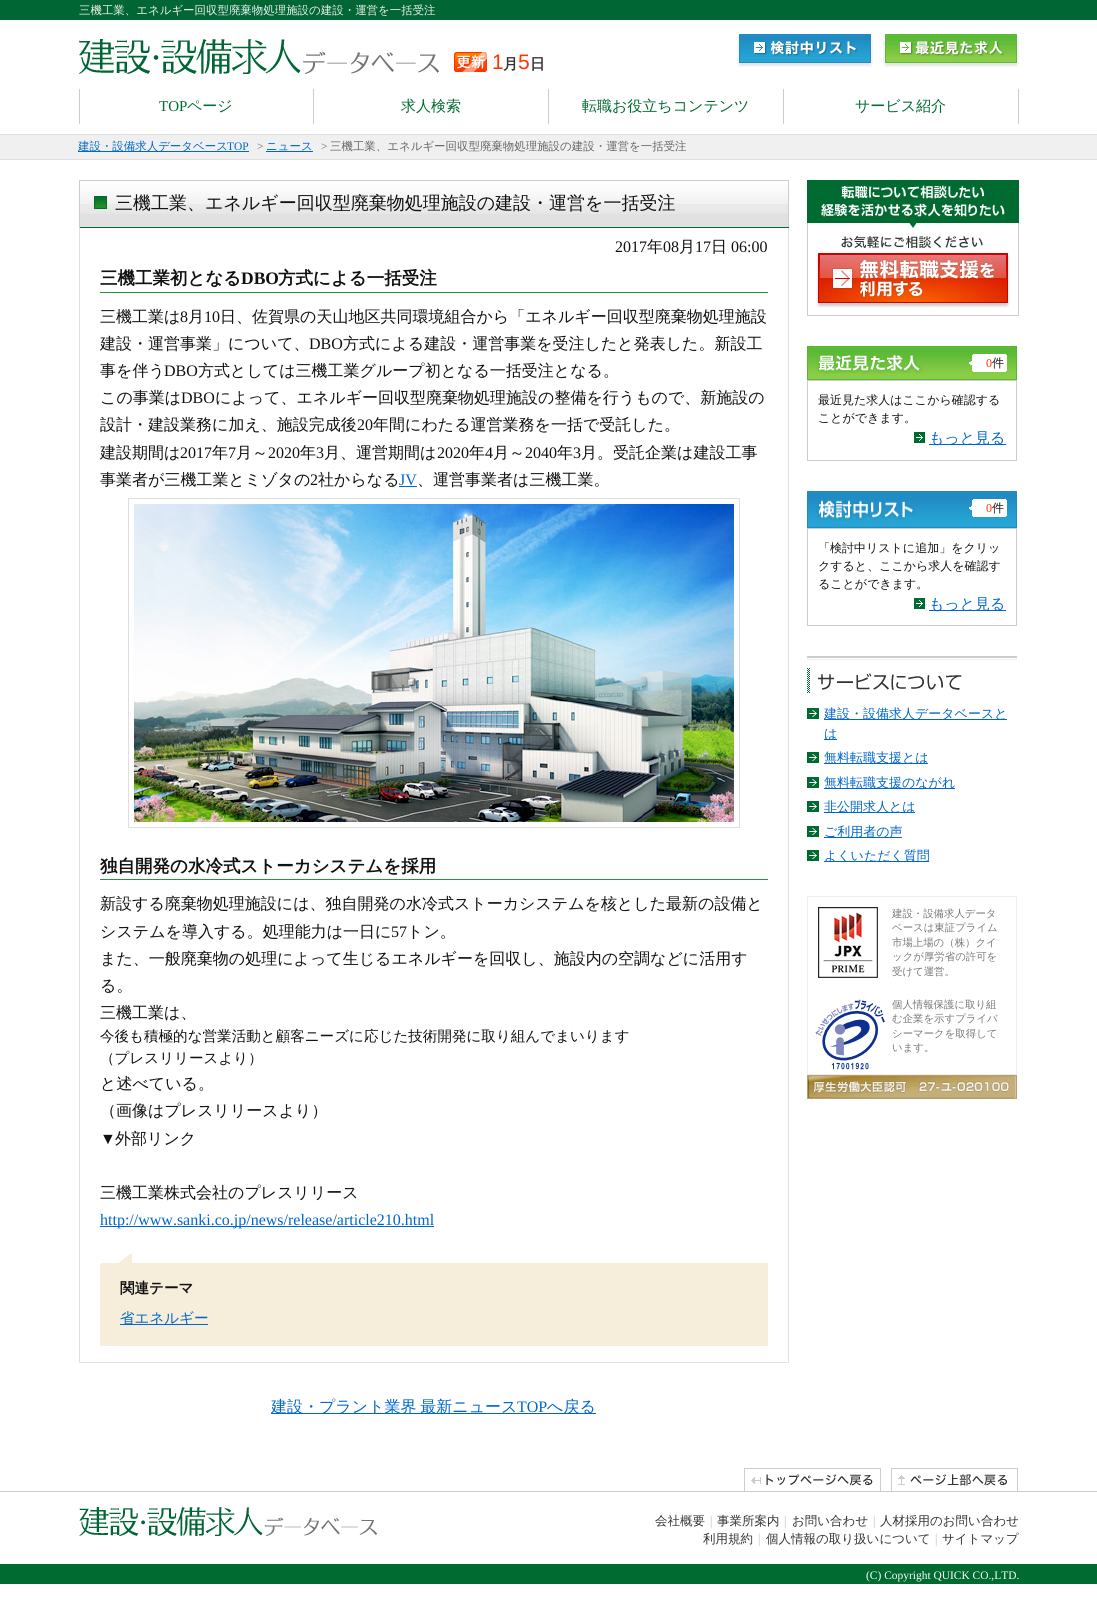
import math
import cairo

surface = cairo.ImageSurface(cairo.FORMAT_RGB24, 1097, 1624)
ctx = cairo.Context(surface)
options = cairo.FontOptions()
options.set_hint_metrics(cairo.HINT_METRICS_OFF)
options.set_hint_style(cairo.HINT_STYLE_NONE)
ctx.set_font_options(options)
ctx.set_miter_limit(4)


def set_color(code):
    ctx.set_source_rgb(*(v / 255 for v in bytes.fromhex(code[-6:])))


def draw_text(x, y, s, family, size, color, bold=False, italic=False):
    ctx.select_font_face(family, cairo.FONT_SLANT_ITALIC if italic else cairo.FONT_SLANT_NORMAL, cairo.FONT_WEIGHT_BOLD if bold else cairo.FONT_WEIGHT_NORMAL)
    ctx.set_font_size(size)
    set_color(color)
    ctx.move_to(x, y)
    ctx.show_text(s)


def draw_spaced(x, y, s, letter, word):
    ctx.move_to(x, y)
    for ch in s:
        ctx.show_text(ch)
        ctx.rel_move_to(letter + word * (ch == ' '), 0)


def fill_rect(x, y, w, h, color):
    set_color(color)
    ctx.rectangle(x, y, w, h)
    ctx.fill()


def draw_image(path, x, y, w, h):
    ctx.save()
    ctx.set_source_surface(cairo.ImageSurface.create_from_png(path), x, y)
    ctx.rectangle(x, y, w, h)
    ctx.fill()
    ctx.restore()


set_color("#ffffff")
ctx.paint()
fill_rect(0, 0, 1097, 20, "#006633")
draw_text(79, 14, "三機工業、エネルギー回収型廃棄物処理施設の建設・運営を一括受注", "WenQuanYi Zen Hei Medium", 11.45, "#f0f0f0")
draw_image("assets/img1.png", 79, 39, 360, 35)
draw_image("assets/img2.png", 454, 52, 33, 20)
draw_text(492, 69, "1", "Liberation Sans", 21, "#ff3300")
draw_text(503, 69, "月", "WenQuanYi Zen Hei", 15, "#333333", bold=True)
draw_text(518, 69, "5", "Liberation Sans", 21, "#ff3300")
draw_text(530, 69, "日", "WenQuanYi Zen Hei", 15, "#333333", bold=True)
draw_image("assets/img3.png", 737, 34, 136, 33)
draw_image("assets/img4.png", 883, 34, 136, 33)
fill_rect(313, 89, 1, 35, "#cccccc")
fill_rect(79, 89, 1, 35, "#cccccc")
draw_text(159, 111, "TOP", "Liberation Serif", 15, "#006b30")
draw_text(187, 111, "ページ", "WenQuanYi Zen Hei Medium", 15, "#006b30")
fill_rect(548, 89, 1, 35, "#cccccc")
draw_text(401, 111, "求人検索", "WenQuanYi Zen Hei Medium", 15, "#006b30")
fill_rect(783, 89, 1, 35, "#cccccc")
draw_text(582, 111, "転職お役立ちコンテンツ", "WenQuanYi Zen Hei Medium", 15, "#006b30")
fill_rect(1018, 89, 1, 35, "#cccccc")
draw_text(855, 111, "サービス紹介", "WenQuanYi Zen Hei Medium", 15, "#006b30")
fill_rect(0, 135, 1097, 24, "#f0f0f0")
fill_rect(0, 134, 1097, 1, "#e0e0e0")
fill_rect(0, 159, 1097, 1, "#e0e0e0")
fill_rect(78, 151, 171, 1, "#0066cc")
draw_text(78, 150, "建設・設備求人データベース", "WenQuanYi Zen Hei Medium", 11.45, "#0066cc")
draw_text(227, 150, "TOP", "Liberation Serif", 11.45, "#0066cc")
draw_text(257, 150, ">", "Liberation Serif", 11.45, "#666666")
draw_text(266, 150, "ニュース", "WenQuanYi Zen Hei Medium", 11.45, "#0066cc")
fill_rect(266, 151, 47, 1, "#0066cc")
draw_text(321, 150, ">", "Liberation Serif", 11.45, "#666666")
draw_text(330, 150, "三機工業、エネルギー回収型廃棄物処理施設の建設・運営を一括受注", "WenQuanYi Zen Hei Medium", 11.45, "#666666")
fill_rect(80, 214, 708, 13, "#e1e1e1")
draw_image("assets/img5.png", 80, 180, 708, 34)
fill_rect(788, 180, 1, 48, "#cccccc")
fill_rect(79, 227, 710, 1, "#006b30")
fill_rect(79, 180, 1, 48, "#cccccc")
draw_text(115, 209, "三機工業、エネルギー回収型廃棄物処理施設の建設・運営を一括受注", "WenQuanYi Zen Hei Medium", 18, "#111111")
fill_rect(788, 228, 1, 1135, "#e0e0e0")
fill_rect(79, 1362, 710, 1, "#e0e0e0")
fill_rect(79, 228, 1, 1135, "#e0e0e0")
draw_text(615, 252, "2017", "Liberation Serif", 16, "#111111")
draw_text(647, 252, "年", "WenQuanYi Zen Hei Medium", 16, "#111111")
draw_text(663, 252, "08", "Liberation Serif", 16, "#111111")
draw_text(679, 252, "月", "WenQuanYi Zen Hei Medium", 16, "#111111")
draw_text(695, 252, "17", "Liberation Serif", 16, "#111111")
draw_text(711, 252, "日", "WenQuanYi Zen Hei Medium", 16, "#111111")
draw_text(731, 252, "06:00", "Liberation Serif", 16, "#111111")
fill_rect(100, 292, 668, 1, "#24963f")
draw_text(100, 284, "三機工業初となる", "WenQuanYi Zen Hei", 17.5, "#111111", bold=True)
draw_text(241, 284, "DBO", "Liberation Serif", 17.5, "#111111", bold=True)
draw_text(278, 284, "方式による一括受注", "WenQuanYi Zen Hei", 17.5, "#111111", bold=True)
draw_text(100, 322, "三機工業は", "WenQuanYi Zen Hei Medium", 16, "#111111")
draw_text(180, 322, "8", "Liberation Serif", 16, "#111111")
draw_text(188, 322, "月", "WenQuanYi Zen Hei Medium", 16, "#111111")
draw_text(204, 322, "10", "Liberation Serif", 16, "#111111")
draw_text(220, 322, "日、佐賀県の天山地区共同環境組合から「エネルギー回収型廃棄物処理施設", "WenQuanYi Zen Hei Medium", 16, "#111111")
draw_text(100, 349, "建設・運営事業」について、", "WenQuanYi Zen Hei Medium", 16, "#111111")
draw_text(309, 349, "DBO", "Liberation Serif", 16, "#111111")
draw_text(343, 349, "方式による建設・運営事業を受注したと発表した。新設工", "WenQuanYi Zen Hei Medium", 16, "#111111")
draw_text(100, 376, "事を伴う", "WenQuanYi Zen Hei Medium", 16, "#111111")
draw_text(164, 376, "DBO", "Liberation Serif", 16, "#111111")
draw_text(198, 376, "方式としては三機工業グループ初となる一括受注となる。", "WenQuanYi Zen Hei Medium", 16, "#111111")
draw_text(100, 403, "この事業は", "WenQuanYi Zen Hei Medium", 16, "#111111")
draw_text(181, 403, "DBO", "Liberation Serif", 16, "#111111")
draw_text(215, 403, "によって、エネルギー回収型廃棄物処理施設の整備を行うもので、新施設の", "WenQuanYi Zen Hei Medium", 16, "#111111")
draw_text(100, 430, "設計・建設業務に加え、施設完成後", "WenQuanYi Zen Hei Medium", 16, "#111111")
draw_text(357, 430, "20", "Liberation Serif", 16, "#111111")
draw_text(373, 430, "年間にわたる運営業務を一括で受託した。", "WenQuanYi Zen Hei Medium", 16, "#111111")
draw_text(100, 458, "建設期間は", "WenQuanYi Zen Hei Medium", 16, "#111111")
draw_text(180, 458, "2017", "Liberation Serif", 16, "#111111")
draw_text(212, 458, "年", "WenQuanYi Zen Hei Medium", 16, "#111111")
draw_text(228, 458, "7", "Liberation Serif", 16, "#111111")
draw_text(236, 458, "月～", "WenQuanYi Zen Hei Medium", 16, "#111111")
draw_text(268, 458, "2020", "Liberation Serif", 16, "#111111")
draw_text(300, 458, "年", "WenQuanYi Zen Hei Medium", 16, "#111111")
draw_text(316, 458, "3", "Liberation Serif", 16, "#111111")
draw_text(324, 458, "月、運営期間は", "WenQuanYi Zen Hei Medium", 16, "#111111")
draw_text(437, 458, "2020", "Liberation Serif", 16, "#111111")
draw_text(469, 458, "年", "WenQuanYi Zen Hei Medium", 16, "#111111")
draw_text(485, 458, "4", "Liberation Serif", 16, "#111111")
draw_text(493, 458, "月～", "WenQuanYi Zen Hei Medium", 16, "#111111")
draw_text(525, 458, "2040", "Liberation Serif", 16, "#111111")
draw_text(557, 458, "年", "WenQuanYi Zen Hei Medium", 16, "#111111")
draw_text(573, 458, "3", "Liberation Serif", 16, "#111111")
draw_text(581, 458, "月。受託企業は建設工事", "WenQuanYi Zen Hei Medium", 16, "#111111")
draw_text(100, 485, "事業者が三機工業とミゾタの", "WenQuanYi Zen Hei Medium", 16, "#111111")
draw_text(310, 485, "2", "Liberation Serif", 16, "#111111")
draw_text(318, 485, "社からなる", "WenQuanYi Zen Hei Medium", 16, "#111111")
draw_text(399, 485, "JV", "Liberation Serif", 16, "#0066cc")
fill_rect(399, 486, 18, 1, "#0066cc")
draw_text(417, 485, "、運営事業者は三機工業。", "WenQuanYi Zen Hei Medium", 16, "#111111")
ctx.rectangle(128.5, 498.5, 611, 329)
set_color("#dedede")
ctx.set_line_width(1)
ctx.stroke()
draw_image("assets/img6.png", 134, 504, 600, 318)
fill_rect(100, 879, 668, 1, "#24963f")
draw_text(100, 872, "独自開発の水冷式ストーカシステムを採用", "WenQuanYi Zen Hei", 17.5, "#111111", bold=True)
draw_text(100, 909, "新設する廃棄物処理施設には、独自開発の水冷式ストーカシステムを核とした最新の設備と", "WenQuanYi Zen Hei Medium", 16, "#111111")
draw_text(100, 937, "システムを導入する。処理能力は一日に", "WenQuanYi Zen Hei Medium", 16, "#111111")
draw_text(391, 937, "57", "Liberation Serif", 16, "#111111")
draw_text(407, 937, "トン。", "WenQuanYi Zen Hei Medium", 16, "#111111")
draw_text(100, 964, "また、一般廃棄物の処理によって生じるエネルギーを回収し、施設内の空調などに活用す", "WenQuanYi Zen Hei Medium", 16, "#111111")
draw_text(100, 991, "る。", "WenQuanYi Zen Hei Medium", 16, "#111111")
draw_text(100, 1018, "三機工業は、", "WenQuanYi Zen Hei Medium", 16, "#111111")
draw_text(100, 1041, "今後も積極的な営業活動と顧客ニーズに応じた技術開発に取り組んでまいります", "WenQuanYi Zen Hei Medium", 14.55, "#111111")
draw_text(100, 1063, "（プレスリリースより）", "WenQuanYi Zen Hei Medium", 14.55, "#111111")
draw_text(100, 1089, "と述べている。", "WenQuanYi Zen Hei Medium", 16, "#111111")
draw_text(100, 1116, "（画像はプレスリリースより）", "WenQuanYi Zen Hei Medium", 16, "#111111")
draw_text(100, 1144, "▼", "Liberation Serif", 16, "#111111")
draw_text(115, 1144, "外部リンク", "WenQuanYi Zen Hei Medium", 16, "#111111")
draw_text(100, 1198, "三機工業株式会社のプレスリリース", "WenQuanYi Zen Hei Medium", 16, "#111111")
fill_rect(100, 1226, 334, 1, "#0066cc")
draw_text(100, 1225, "http://www.sanki.co.jp/news/release/article210.html", "Liberation Serif", 16, "#0066cc")
fill_rect(100, 1265, 668, 81, "#f6edda")
draw_image("assets/img7.png", 100, 1253, 668, 12)
draw_text(120, 1293, "関連テーマ", "WenQuanYi Zen Hei", 14.55, "#111111", bold=True)
fill_rect(120, 1324, 88, 1, "#0066cc")
draw_text(120, 1323, "省エネルギー", "WenQuanYi Zen Hei Medium", 14.55, "#0066cc")
fill_rect(271, 1413, 325, 1, "#0066cc")
ctx.set_font_size(16)
draw_spaced(271, 1412, "建設・プラント業界 最新ニュース", 0, -1)
draw_text(517, 1412, "TOP", "Liberation Serif", 16, "#0066cc")
draw_text(547, 1412, "へ戻る", "WenQuanYi Zen Hei Medium", 16, "#0066cc")
fill_rect(1018, 180, 1, 43, "#006b30")
fill_rect(807, 180, 1, 43, "#006b30")
draw_image("assets/img8.png", 808, 180, 210, 43)
draw_image("assets/img9.png", 909, 223, 9, 5)
fill_rect(1018, 223, 1, 93, "#cccccc")
fill_rect(807, 315, 212, 1, "#cccccc")
fill_rect(807, 223, 1, 93, "#cccccc")
draw_image("assets/img10.png", 841, 236, 142, 12)
draw_image("assets/img11.png", 816, 253, 194, 55)
draw_image("assets/img12.png", 807, 346, 210, 34)
draw_image("assets/img13.png", 969, 354, 38, 18)
draw_text(986, 367, "0", "Liberation Serif", 12, "#ff3300")
draw_text(992, 367, "件", "WenQuanYi Zen Hei Medium", 12, "#111111")
ctx.rectangle(807.5, 380.5, 209, 80)
set_color("#cccccc")
ctx.stroke()
draw_text(818, 404, "最近見た求人はここから確認する", "WenQuanYi Zen Hei Medium", 12, "#111111")
draw_text(818, 422, "ことができます。", "WenQuanYi Zen Hei Medium", 12, "#111111")
draw_image("assets/img14.png", 914, 432, 11, 11)
fill_rect(929, 444, 77, 1, "#0066cc")
draw_text(929, 443, "もっと見る", "WenQuanYi Zen Hei Medium", 15, "#0066cc")
draw_image("assets/img15.png", 807, 491, 210, 37)
draw_image("assets/img16.png", 969, 499, 38, 18)
draw_text(986, 512, "0", "Liberation Serif", 12, "#ff3300")
draw_text(992, 512, "件", "WenQuanYi Zen Hei Medium", 12, "#111111")
ctx.rectangle(807.5, 528.5, 209, 97)
set_color("#cccccc")
ctx.stroke()
draw_text(818, 552, "「検討中リストに追加」をクリッ", "WenQuanYi Zen Hei Medium", 12, "#111111")
draw_text(818, 570, "クすると、ここから求人を確認す", "WenQuanYi Zen Hei Medium", 12, "#111111")
draw_text(818, 588, "ることができます。", "WenQuanYi Zen Hei Medium", 12, "#111111")
draw_image("assets/img14.png", 914, 598, 11, 11)
fill_rect(929, 610, 77, 1, "#0066cc")
draw_text(929, 609, "もっと見る", "WenQuanYi Zen Hei Medium", 15, "#0066cc")
draw_image("assets/img17.png", 807, 656, 210, 37)
draw_image("assets/img18.png", 807, 708, 12, 11)
fill_rect(824, 719, 183, 1, "#0066cc")
draw_text(824, 718, "建設・設備求人データベースと", "WenQuanYi Zen Hei Medium", 13, "#0066cc")
fill_rect(824, 739, 13, 1, "#0066cc")
draw_text(824, 738, "は", "WenQuanYi Zen Hei Medium", 13, "#0066cc")
draw_image("assets/img18.png", 807, 752, 12, 11)
fill_rect(824, 763, 104, 1, "#0066cc")
draw_text(824, 762, "無料転職支援とは", "WenQuanYi Zen Hei Medium", 13, "#0066cc")
draw_image("assets/img18.png", 807, 777, 12, 11)
fill_rect(824, 788, 131, 1, "#0066cc")
draw_text(824, 787, "無料転職支援のながれ", "WenQuanYi Zen Hei Medium", 13, "#0066cc")
draw_image("assets/img18.png", 807, 801, 12, 11)
fill_rect(824, 812, 91, 1, "#0066cc")
draw_text(824, 811, "非公開求人とは", "WenQuanYi Zen Hei Medium", 13, "#0066cc")
draw_image("assets/img18.png", 807, 826, 12, 11)
fill_rect(824, 837, 78, 1, "#0066cc")
draw_text(824, 836, "ご利用者の声", "WenQuanYi Zen Hei Medium", 13, "#0066cc")
draw_image("assets/img18.png", 807, 850, 12, 11)
fill_rect(824, 861, 105, 1, "#0066cc")
draw_text(824, 860, "よくいただく質問", "WenQuanYi Zen Hei Medium", 13, "#0066cc")
ctx.rectangle(807.5, 896.5, 209, 178)
set_color("#f0eeec")
ctx.stroke()
draw_image("assets/img19.png", 818, 907, 60, 71)
draw_text(892, 917, "建設・設備求人データ", "WenQuanYi Zen Hei Medium", 10.4, "#777777")
draw_text(892, 931, "ベースは東証プライム", "WenQuanYi Zen Hei Medium", 10.4, "#777777")
draw_text(892, 946, "市場上場の（株）クイ", "WenQuanYi Zen Hei Medium", 10.4, "#777777")
draw_text(892, 960, "ックが厚労省の許可を", "WenQuanYi Zen Hei Medium", 10.4, "#777777")
draw_text(892, 975, "受けて運営。", "WenQuanYi Zen Hei Medium", 10.4, "#777777")
draw_image("assets/img20.png", 815, 999, 70, 71)
draw_text(892, 1008, "個人情報保護に取り組", "WenQuanYi Zen Hei Medium", 10.4, "#777777")
draw_text(892, 1022, "む企業を示すプライバ", "WenQuanYi Zen Hei Medium", 10.4, "#777777")
draw_text(892, 1037, "シーマークを取得して", "WenQuanYi Zen Hei Medium", 10.4, "#777777")
draw_text(892, 1051, "います。", "WenQuanYi Zen Hei Medium", 10.4, "#777777")
draw_image("assets/img21.png", 807, 1075, 210, 24)
fill_rect(0, 1491, 1097, 1, "#cccccc")
draw_image("assets/img22.png", 744, 1468, 137, 23)
draw_image("assets/img23.png", 891, 1468, 127, 23)
draw_image("assets/img24.png", 79, 1507, 299, 29)
draw_text(655, 1525, "会社概要", "WenQuanYi Zen Hei Medium", 12.5, "#333333")
draw_text(705, 1525, "｜", "WenQuanYi Zen Hei Medium", 12.5, "#cccccc")
draw_text(717, 1525, "事業所案内", "WenQuanYi Zen Hei Medium", 12.5, "#333333")
draw_text(779, 1525, "｜", "WenQuanYi Zen Hei Medium", 12.5, "#cccccc")
draw_text(792, 1525, "お問い合わせ", "WenQuanYi Zen Hei Medium", 12.5, "#333333")
draw_text(868, 1525, "｜", "WenQuanYi Zen Hei Medium", 12.5, "#cccccc")
draw_text(880, 1525, "人材採用のお問い合わせ", "WenQuanYi Zen Hei Medium", 12.5, "#333333")
draw_text(703, 1543, "利用規約", "WenQuanYi Zen Hei Medium", 12.5, "#333333")
draw_text(753, 1543, "｜", "WenQuanYi Zen Hei Medium", 12.5, "#cccccc")
draw_text(766, 1543, "個人情報の取り扱いについて", "WenQuanYi Zen Hei Medium", 12.5, "#333333")
draw_text(930, 1543, "｜", "WenQuanYi Zen Hei Medium", 12.5, "#cccccc")
draw_text(942, 1543, "サイトマップ", "WenQuanYi Zen Hei Medium", 12.5, "#333333")
fill_rect(0, 1564, 1097, 20, "#006b30")
draw_text(866, 1579, "(C) Copyright QUICK CO.,LTD.", "Liberation Serif", 11.45, "#ffffff")
surface.write_to_png("output.png")
